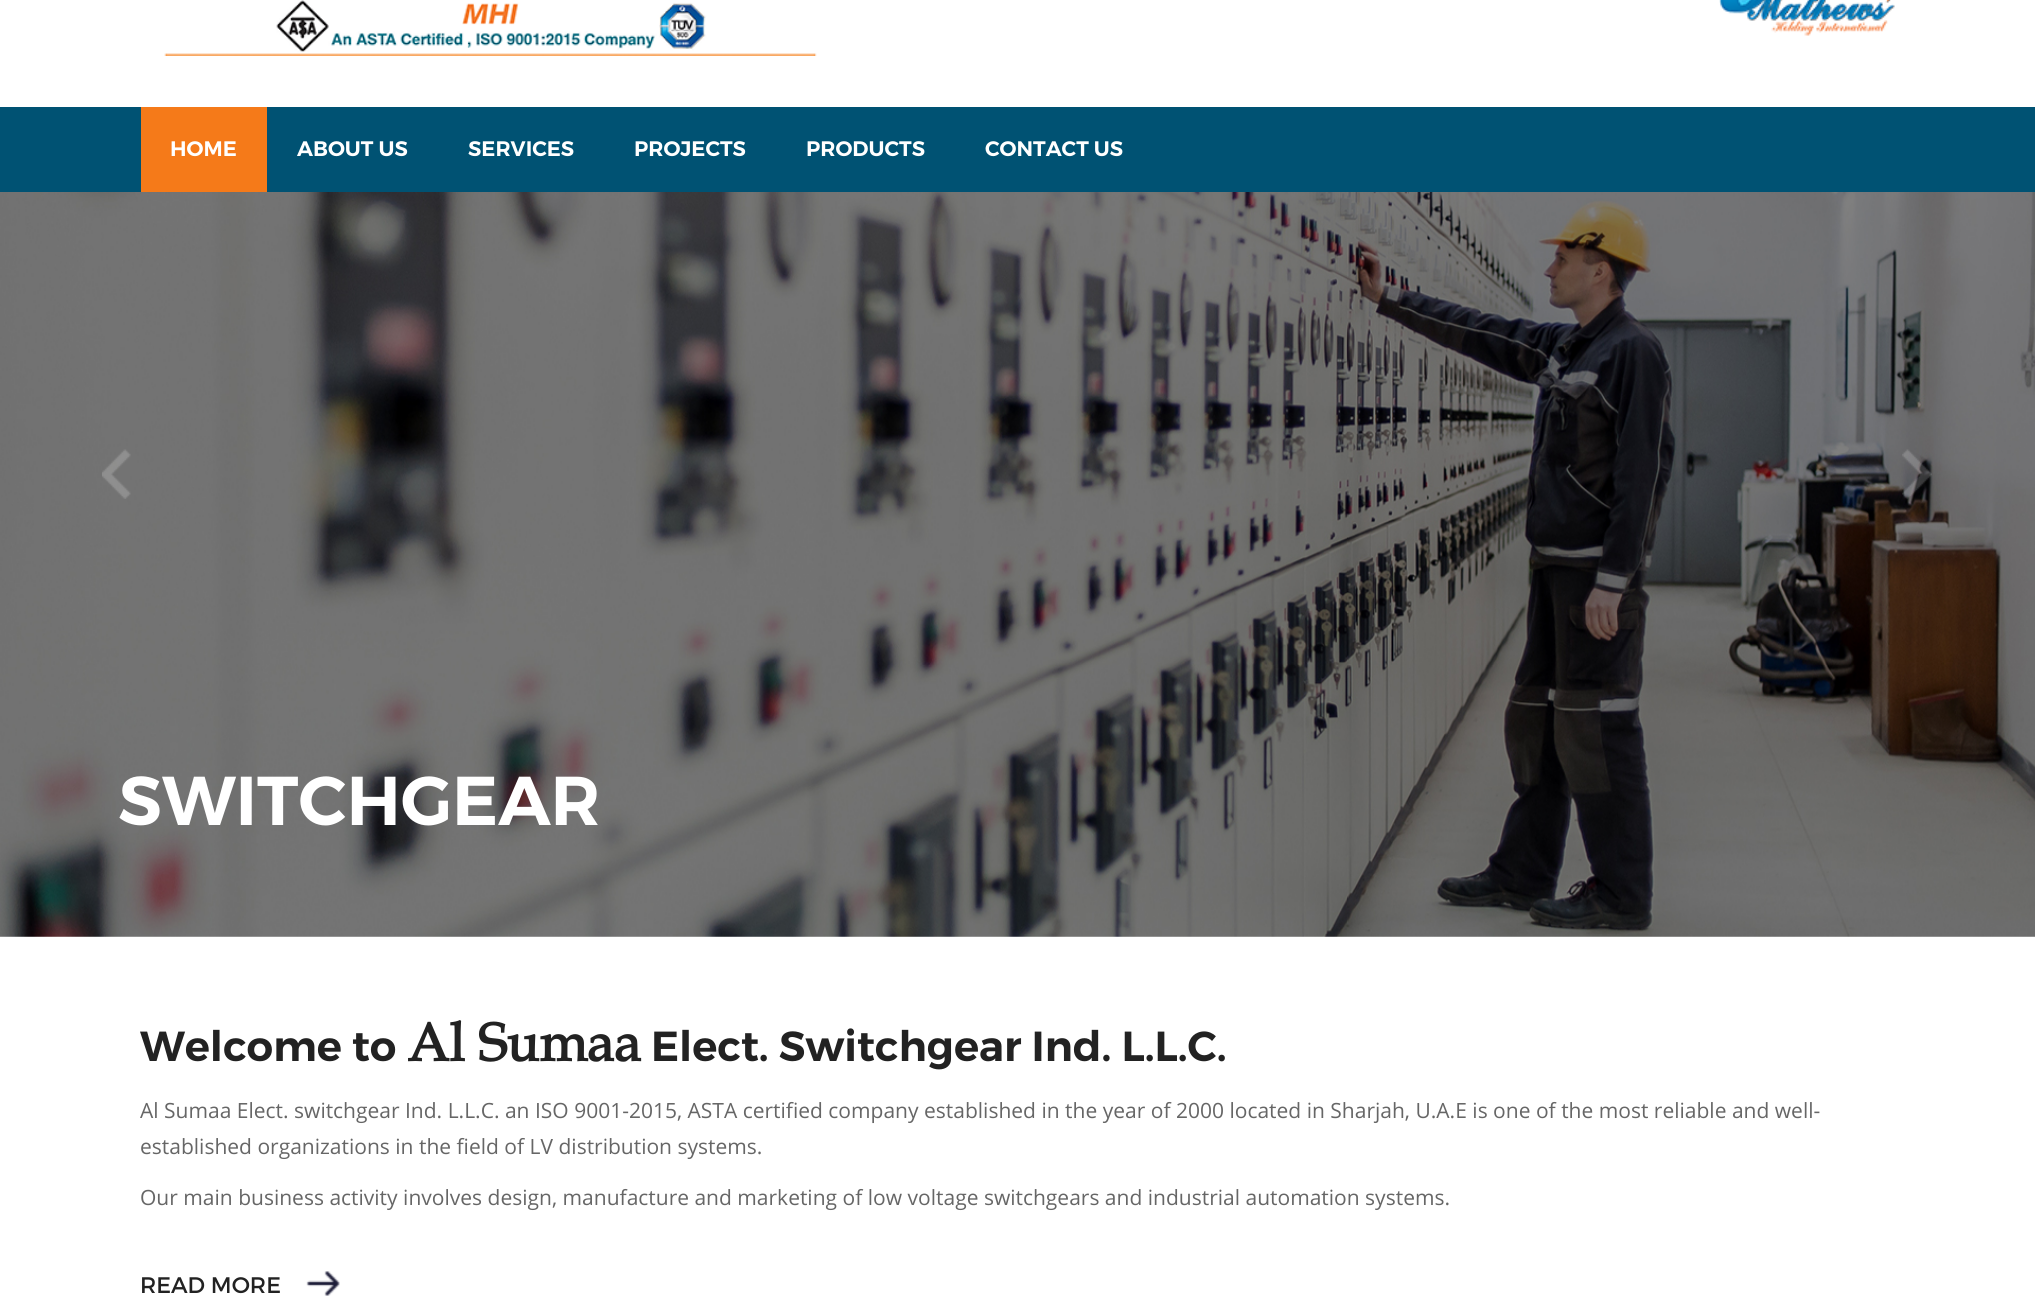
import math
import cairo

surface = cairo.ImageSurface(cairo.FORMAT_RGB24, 2035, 1302)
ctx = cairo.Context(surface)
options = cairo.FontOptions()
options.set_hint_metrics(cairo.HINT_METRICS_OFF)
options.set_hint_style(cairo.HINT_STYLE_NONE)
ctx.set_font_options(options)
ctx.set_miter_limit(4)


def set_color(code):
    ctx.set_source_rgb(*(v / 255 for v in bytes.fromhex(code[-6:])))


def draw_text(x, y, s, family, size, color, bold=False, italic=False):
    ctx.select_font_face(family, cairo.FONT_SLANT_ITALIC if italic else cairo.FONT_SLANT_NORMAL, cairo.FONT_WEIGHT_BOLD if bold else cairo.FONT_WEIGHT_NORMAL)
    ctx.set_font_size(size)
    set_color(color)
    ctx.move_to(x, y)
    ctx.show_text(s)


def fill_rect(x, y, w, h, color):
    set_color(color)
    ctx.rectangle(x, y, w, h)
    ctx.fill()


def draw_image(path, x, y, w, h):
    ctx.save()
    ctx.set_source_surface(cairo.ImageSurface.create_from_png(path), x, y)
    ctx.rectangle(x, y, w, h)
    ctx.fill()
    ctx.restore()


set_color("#ffffff")
ctx.paint()
draw_image("assets/img1.png", 164, 0, 653, 56)
draw_image("assets/img2.png", 1719, 0, 176, 36)
fill_rect(0, 107, 2035, 85, "#005273")
fill_rect(141, 107, 126, 85, "#f57a19")
draw_text(170, 156, "HOME", "Montserrat SemiBold", 21, "#ffffff")
draw_text(297, 156, "ABOUT US", "Montserrat SemiBold", 21, "#ffffff")
draw_text(468, 156, "SERVICES", "Montserrat SemiBold", 21, "#ffffff")
draw_text(634, 156, "PROJECTS", "Montserrat SemiBold", 21, "#ffffff")
draw_text(806, 156, "PRODUCTS", "Montserrat SemiBold", 21, "#ffffff")
draw_text(985, 156, "CONTACT US", "Montserrat SemiBold", 21, "#ffffff")
draw_image("assets/img5.png", 0, 192, 2035, 745)
draw_image("assets/img3.png", 102, 449, 29, 50)
draw_image("assets/img4.png", 1902, 449, 30, 51)
draw_text(118, 825, "SWITCHGEAR", "Montserrat SemiBold", 69, "#ffffff")
draw_text(140, 1061, "Welcome to", "Montserrat SemiBold", 42, "#222222")
draw_text(407, 1061, "Al Sumaa", "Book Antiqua", 54, "#222222", bold=True)
draw_text(651, 1061, "Elect. Switchgear Ind. L.L.C.", "Montserrat SemiBold", 42, "#222222")
draw_text(140, 1118, "Al Sumaa Elect. switchgear Ind. L.L.C. an ISO 9001-2015, ASTA certified company established in the year of 2000 located in Sharjah, U.A.E is one of the most reliable and well-", "Open Sans", 21, "#666666")
draw_text(140, 1154, "established organizations in the field of LV distribution systems.", "Open Sans", 21, "#666666")
draw_text(140, 1205, "Our main business activity involves design, manufacture and marketing of low voltage switchgears and industrial automation systems.", "Open Sans", 21, "#666666")
draw_text(140, 1293, "READ MORE", "Montserrat", 22.5, "#222222")
draw_image("assets/img6.png", 306, 1271, 34, 25)
surface.write_to_png("output.png")
